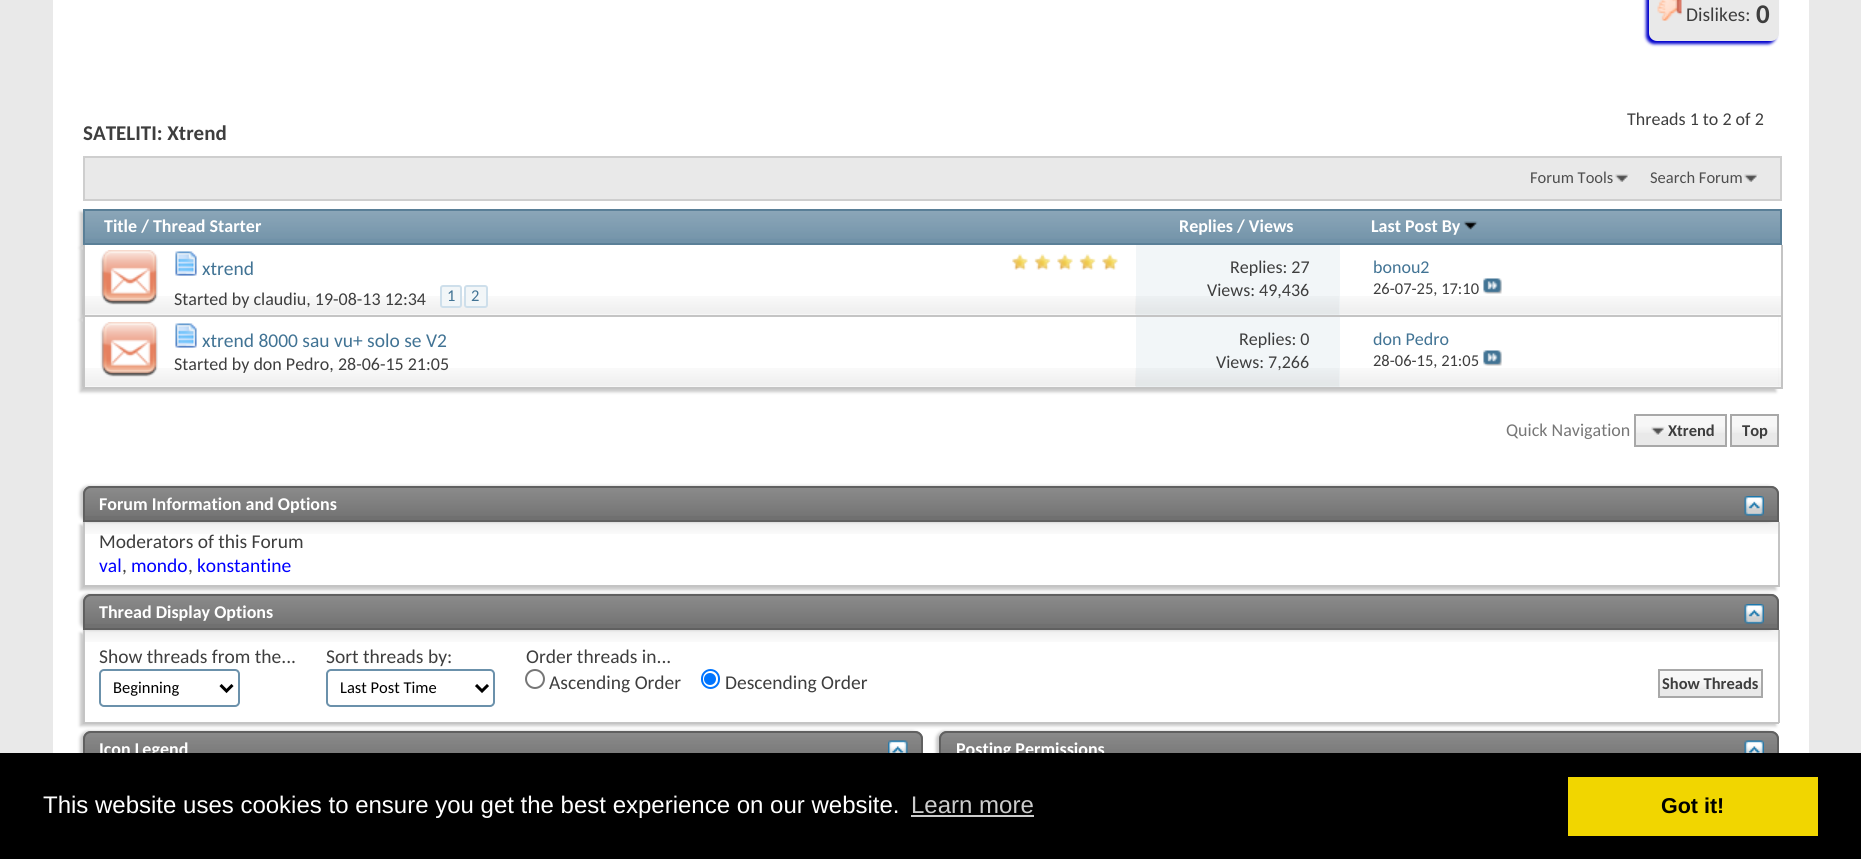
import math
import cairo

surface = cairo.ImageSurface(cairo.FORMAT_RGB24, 1861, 859)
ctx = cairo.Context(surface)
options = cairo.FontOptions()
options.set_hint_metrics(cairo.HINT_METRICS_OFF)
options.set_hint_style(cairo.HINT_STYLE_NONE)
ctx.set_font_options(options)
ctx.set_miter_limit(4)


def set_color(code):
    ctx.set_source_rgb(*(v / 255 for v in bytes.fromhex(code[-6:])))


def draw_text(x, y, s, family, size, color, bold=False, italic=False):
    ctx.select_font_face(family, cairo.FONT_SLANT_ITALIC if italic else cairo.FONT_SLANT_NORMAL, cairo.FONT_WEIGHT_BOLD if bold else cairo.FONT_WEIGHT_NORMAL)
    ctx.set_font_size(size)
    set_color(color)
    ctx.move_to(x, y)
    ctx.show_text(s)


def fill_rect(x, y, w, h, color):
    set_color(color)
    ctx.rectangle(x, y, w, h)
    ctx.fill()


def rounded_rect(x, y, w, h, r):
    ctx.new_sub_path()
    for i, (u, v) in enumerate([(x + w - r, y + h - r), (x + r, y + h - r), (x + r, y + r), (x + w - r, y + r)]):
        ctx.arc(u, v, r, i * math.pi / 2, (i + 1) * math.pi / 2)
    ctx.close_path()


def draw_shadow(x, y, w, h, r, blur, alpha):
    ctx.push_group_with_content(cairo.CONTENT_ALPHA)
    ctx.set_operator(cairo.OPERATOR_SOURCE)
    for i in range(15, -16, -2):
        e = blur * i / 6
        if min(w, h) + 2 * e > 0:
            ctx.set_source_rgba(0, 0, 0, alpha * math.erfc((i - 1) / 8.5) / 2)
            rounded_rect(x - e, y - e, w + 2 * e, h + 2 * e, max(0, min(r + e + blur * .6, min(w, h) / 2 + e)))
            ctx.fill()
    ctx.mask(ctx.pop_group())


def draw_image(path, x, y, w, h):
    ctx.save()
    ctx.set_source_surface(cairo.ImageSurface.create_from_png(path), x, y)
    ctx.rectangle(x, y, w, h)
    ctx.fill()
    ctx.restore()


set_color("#e9e9e9")
ctx.paint()
fill_rect(53, 0, 1756, 753, "#ffffff")
set_color("#0000cc")
draw_shadow(1646, -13, 130, 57, 8, 1.5, 1)
set_color("#e9e9e9")
rounded_rect(1649, -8, 130, 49, 8)
ctx.fill()
draw_image("assets/img1.png", 1657, 0, 25, 21)
draw_text(1686, 21, "Dislikes:", "Carlito", 19.5, "#3e3e3e")
draw_text(1756, 23, "0", "Carlito", 27, "#3e3e3e", bold=True)
draw_text(1627, 125, "Threads 1 to 2 of 2", "Carlito", 18, "#3e3e3e")
draw_text(83, 140, "SATELITI: Xtrend", "Carlito", 21, "#3e3e3e", bold=True)
set_color("#e9e9e9")
ctx.rectangle(84, 157, 1697, 43)
ctx.fill_preserve()
set_color("#cecece")
ctx.stroke()
draw_image("assets/img2.png", 1615, 174, 14, 8)
draw_text(1530, 183, "Forum Tools", "Carlito", 16.5, "#4e4e4e")
draw_image("assets/img2.png", 1744, 174, 14, 8)
draw_text(1650, 183, "Search Forum", "Carlito", 16.5, "#4e4e4e")
set_color("#c8c8c8")
draw_shadow(80, 212, 1699, 36, 0, 1.5, 1)
fill_rect(85, 211, 1695, 32, "#7192a8")
draw_image("assets/img3.png", 85, 211, 1695, 28)
ctx.rectangle(84, 210, 1697, 34)
set_color("#5a7f97")
ctx.stroke()
draw_text(104, 232, "Title / Thread Starter", "Carlito", 18, "#ffffff", bold=True)
draw_text(1179, 232, "Replies / Views", "Carlito", 18, "#ffffff", bold=True)
draw_text(1371, 232, "Last Post By", "Carlito", 18, "#ffffff", bold=True)
draw_image("assets/img4.png", 1463, 221, 15, 9)
set_color("#c8c8c8")
draw_shadow(80, 248, 1696, 72, 0, 1.5, 1)
fill_rect(85, 245, 1696, 70, "#ffffff")
draw_image("assets/img5.png", 82, 296, 1699, 19)
fill_rect(1781, 245, 2, 72, "#c4c4c4")
fill_rect(83, 315, 1699, 2, "#c4c4c4")
fill_rect(83, 245, 2, 72, "#c4c4c4")
draw_image("assets/img6.png", 100, 250, 58, 55)
draw_image("assets/img7.png", 1012, 254, 106, 16)
draw_image("assets/img8.png", 175, 251, 22, 25)
draw_text(202, 275, "xtrend", "Carlito", 19.5, "#417394")
draw_text(174, 305, "Started by claudiu, 19-08-13 12:34", "Carlito", 18, "#3e3e3e")
set_color("#f2f6f8")
rounded_rect(441, 286, 20, 21, 2)
ctx.fill_preserve()
set_color("#cedfeb")
ctx.stroke()
draw_text(447, 301, "1", "Carlito", 16.5, "#417394")
set_color("#f2f6f8")
rounded_rect(465, 286, 22, 21, 2)
ctx.fill_preserve()
set_color("#cedfeb")
ctx.stroke()
draw_text(471, 301, "2", "Carlito", 16.5, "#417394")
fill_rect(1136, 245, 204, 70, "#f2f6f8")
draw_image("assets/img9.png", 1135, 296, 205, 19)
draw_text(1230, 273, "Replies: 27", "Carlito", 18, "#3e3e3e")
draw_text(1207, 296, "Views: 49,436", "Carlito", 18, "#3e3e3e")
draw_text(1373, 273, "bonou2", "Carlito", 18, "#417394")
draw_text(1373, 294, "26-07-25, 17:10", "Carlito", 16.5, "#3e3e3e")
draw_image("assets/img10.png", 1483, 278, 19, 16)
set_color("#c8c8c8")
draw_shadow(80, 320, 1696, 72, 0, 1.5, 1)
fill_rect(85, 317, 1693, 70, "#ffffff")
draw_image("assets/img5.png", 82, 368, 1699, 19)
fill_rect(1781, 317, 2, 72, "#c4c4c4")
fill_rect(83, 387, 1699, 2, "#c4c4c4")
fill_rect(83, 317, 2, 72, "#c4c4c4")
draw_image("assets/img6.png", 100, 322, 58, 55)
draw_image("assets/img8.png", 175, 323, 22, 25)
draw_text(202, 347, "xtrend 8000 sau vu+ solo se V2", "Carlito", 19.5, "#417394")
draw_text(174, 370, "Started by don Pedro, 28-06-15 21:05", "Carlito", 18, "#3e3e3e")
fill_rect(1136, 317, 204, 70, "#f2f6f8")
draw_image("assets/img9.png", 1135, 368, 205, 19)
draw_text(1239, 345, "Replies: 0", "Carlito", 18, "#3e3e3e")
draw_text(1216, 368, "Views: 7,266", "Carlito", 18, "#3e3e3e")
draw_text(1373, 345, "don Pedro", "Carlito", 18, "#417394")
draw_text(1373, 366, "28-06-15, 21:05", "Carlito", 16.5, "#3e3e3e")
draw_image("assets/img10.png", 1483, 350, 19, 16)
draw_text(1506, 436, "Quick Navigation", "Carlito", 18, "#777777")
fill_rect(1636, 416, 89, 29, "#e9e9e9")
draw_image("assets/img11.png", 1636, 416, 89, 17)
fill_rect(1732, 416, 45, 29, "#e9e9e9")
draw_image("assets/img12.png", 1732, 416, 45, 17)
ctx.rectangle(1635, 415, 91, 31)
set_color("#a8a8a8")
ctx.stroke()
draw_image("assets/img13.png", 1651, 426, 14, 10)
draw_text(1668, 436, "Xtrend", "Carlito", 16.5, "#3e3e3e", bold=True)
ctx.rectangle(1731, 415, 47, 31)
set_color("#a8a8a8")
ctx.stroke()
draw_text(1742, 436, "Top", "Carlito", 16.5, "#3e3e3e", bold=True)
set_color("#c8c8c8")
draw_shadow(80, 525, 1696, 65, 0, 1.5, 1)
fill_rect(85, 523, 1693, 62, "#ffffff")
draw_image("assets/img16.png", 82, 521, 1696, 13)
fill_rect(1778, 522, 2, 65, "#c4c4c4")
fill_rect(83, 585, 1696, 2, "#c4c4c4")
fill_rect(83, 522, 2, 65, "#c4c4c4")
set_color("#c8c8c8")
draw_shadow(80, 486, 1696, 36, 8, 1.5, 1)
set_color("#707070")
ctx.new_path()
ctx.move_to(91, 486)
ctx.line_to(1771, 486)
ctx.curve_to(1775.5, 486, 1779, 489.5, 1779, 494)
ctx.line_to(1779, 522)
ctx.line_to(83, 522)
ctx.line_to(83, 494)
ctx.curve_to(83, 489.5, 86.5, 486, 91, 486)
ctx.close_path()
ctx.fill()
draw_image("assets/img14.png", 83, 487, 1696, 29)
ctx.new_path()
ctx.move_to(91, 487)
ctx.line_to(1771, 487)
ctx.curve_to(1775, 487, 1778, 490, 1778, 494)
ctx.line_to(1778, 521)
ctx.line_to(84, 521)
ctx.line_to(84, 494)
ctx.curve_to(84, 490, 87, 487, 91, 487)
ctx.close_path()
set_color("#606060")
ctx.stroke()
draw_text(99, 510, "Forum Information and Options", "Carlito", 18, "#ffffff", bold=True)
draw_image("assets/img15.png", 1744, 496, 20, 20)
draw_text(99, 548, "Moderators of this Forum", "Carlito", 19.5, "#3e3e3e")
draw_text(99, 572, "val", "Carlito", 19.5, "#0000ff")
draw_text(122, 572, ",", "Carlito", 19.5, "#3e3e3e")
draw_text(131, 572, "mondo", "Carlito", 19.5, "#0000ff")
draw_text(188, 572, ",", "Carlito", 19.5, "#3e3e3e")
draw_text(197, 572, "konstantine", "Carlito", 19.5, "#0000ff")
ctx.save()
ctx.set_fill_rule(cairo.FILL_RULE_EVEN_ODD)
ctx.new_path()
ctx.move_to(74, 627)
ctx.line_to(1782, 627)
ctx.line_to(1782, 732)
ctx.line_to(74, 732)
ctx.close_path()
ctx.move_to(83, 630)
ctx.line_to(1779, 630)
ctx.line_to(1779, 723)
ctx.line_to(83, 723)
ctx.close_path()
ctx.clip()
set_color("#c8c8c8")
draw_shadow(80, 633, 1696, 93, 0, 1.5, 1)
ctx.restore()
draw_image("assets/img16.png", 82, 629, 1696, 13)
fill_rect(1778, 630, 2, 93, "#c4c4c4")
fill_rect(83, 722, 1696, 2, "#c4c4c4")
fill_rect(83, 630, 2, 93, "#c4c4c4")
set_color("#c8c8c8")
draw_shadow(80, 594, 1696, 36, 8, 1.5, 1)
set_color("#707070")
ctx.new_path()
ctx.move_to(91, 594)
ctx.line_to(1771, 594)
ctx.curve_to(1775.5, 594, 1779, 597.5, 1779, 602)
ctx.line_to(1779, 630)
ctx.line_to(83, 630)
ctx.line_to(83, 602)
ctx.curve_to(83, 597.5, 86.5, 594, 91, 594)
ctx.close_path()
ctx.fill()
draw_image("assets/img14.png", 83, 595, 1696, 29)
ctx.new_path()
ctx.move_to(91, 595)
ctx.line_to(1771, 595)
ctx.curve_to(1775, 595, 1778, 598, 1778, 602)
ctx.line_to(1778, 629)
ctx.line_to(84, 629)
ctx.line_to(84, 602)
ctx.curve_to(84, 598, 87, 595, 91, 595)
ctx.close_path()
set_color("#606060")
ctx.stroke()
draw_text(99, 618, "Thread Display Options", "Carlito", 18, "#ffffff", bold=True)
draw_image("assets/img15.png", 1744, 604, 20, 20)
draw_text(99, 663, "Show threads from the...", "Carlito", 19.5, "#3e3e3e")
rounded_rect(100, 670, 139, 36, 4)
set_color("#6b91ab")
ctx.stroke()
ctx.new_path()
ctx.move_to(220.5, 685)
ctx.line_to(226.5, 691)
ctx.line_to(232.5, 685)
set_color("#000000")
ctx.set_line_width(3)
ctx.stroke()
draw_text(113, 693, "Beginning", "Carlito", 16.5, "#000000")
draw_text(326, 663, "Sort threads by:", "Carlito", 19.5, "#3e3e3e")
rounded_rect(327, 670, 167, 36, 4)
set_color("#6b91ab")
ctx.set_line_width(2)
ctx.stroke()
ctx.new_path()
ctx.move_to(476, 685)
ctx.line_to(482, 691)
ctx.line_to(488, 685)
set_color("#000000")
ctx.set_line_width(3)
ctx.stroke()
draw_text(340, 693, "Last Post Time", "Carlito", 16.5, "#000000")
draw_text(526, 663, "Order threads in...", "Carlito", 19.5, "#3e3e3e")
ctx.new_path()
ctx.arc(535, 679, 9, 0, 2 * math.pi)
set_color("#767676")
ctx.set_line_width(2)
ctx.stroke()
draw_text(549, 689, "Ascending Order", "Carlito", 19.5, "#3e3e3e")
rounded_rect(702, 670, 17, 18, 8.5)
set_color("#0075ff")
ctx.stroke()
ctx.arc(710, 679, 6, 0, 2 * math.pi)
ctx.fill()
draw_text(725, 689, "Descending Order", "Carlito", 19.5, "#3e3e3e")
fill_rect(1660, 671, 101, 25, "#e9e9e9")
draw_image("assets/img17.png", 1660, 671, 101, 17)
ctx.rectangle(1659, 670, 103, 27)
set_color("#a8a8a8")
ctx.stroke()
draw_text(1662, 689, "Show Threads", "Carlito", 16.5, "#3e3e3e", bold=True)
set_color("#c8c8c8")
draw_shadow(80, 731, 840, 36, 8, 1.5, 1)
set_color("#707070")
ctx.new_path()
ctx.move_to(91, 731)
ctx.line_to(915, 731)
ctx.curve_to(919.5, 731, 923, 734.5, 923, 739)
ctx.line_to(923, 767)
ctx.line_to(83, 767)
ctx.line_to(83, 739)
ctx.curve_to(83, 734.5, 86.5, 731, 91, 731)
ctx.close_path()
ctx.fill()
draw_image("assets/img18.png", 83, 731, 840, 22)
ctx.new_path()
ctx.move_to(91, 732)
ctx.line_to(915, 732)
ctx.curve_to(919, 732, 922, 735, 922, 739)
ctx.line_to(922, 766)
ctx.line_to(84, 766)
ctx.line_to(84, 739)
ctx.curve_to(84, 735, 87, 732, 91, 732)
ctx.close_path()
set_color("#606060")
ctx.stroke()
draw_text(99, 755, "Icon Legend", "Carlito", 18, "#ffffff", bold=True)
draw_image("assets/img19.png", 888, 740, 20, 13)
set_color("#c8c8c8")
draw_shadow(936, 731, 840, 36, 8, 1.5, 1)
set_color("#707070")
ctx.new_path()
ctx.move_to(947, 731)
ctx.line_to(1771, 731)
ctx.curve_to(1775.5, 731, 1779, 734.5, 1779, 739)
ctx.line_to(1779, 767)
ctx.line_to(939, 767)
ctx.line_to(939, 739)
ctx.curve_to(939, 734.5, 942.5, 731, 947, 731)
ctx.close_path()
ctx.fill()
draw_image("assets/img20.png", 939, 731, 840, 22)
ctx.new_path()
ctx.move_to(947, 732)
ctx.line_to(1771, 732)
ctx.curve_to(1775, 732, 1778, 735, 1778, 739)
ctx.line_to(1778, 766)
ctx.line_to(940, 766)
ctx.line_to(940, 739)
ctx.curve_to(940, 735, 943, 732, 947, 732)
ctx.close_path()
set_color("#606060")
ctx.stroke()
draw_text(956, 755, "Posting Permissions", "Carlito", 18, "#ffffff", bold=True)
draw_image("assets/img21.png", 1744, 740, 20, 13)
fill_rect(0, 753, 1861, 106, "#000000")
draw_text(43, 813, "This website uses cookies to ensure you get the best experience on our website.", "Liberation Sans", 24, "#ffffff")
draw_text(911, 813, "Learn more", "Liberation Sans", 24, "#cccccc")
fill_rect(911, 815, 123, 2, "#cccccc")
fill_rect(1568, 777, 250, 59, "#f1d600")
draw_text(1661, 813, "Got it!", "Liberation Sans", 21.5, "#000000", bold=True)
surface.write_to_png("output.png")
